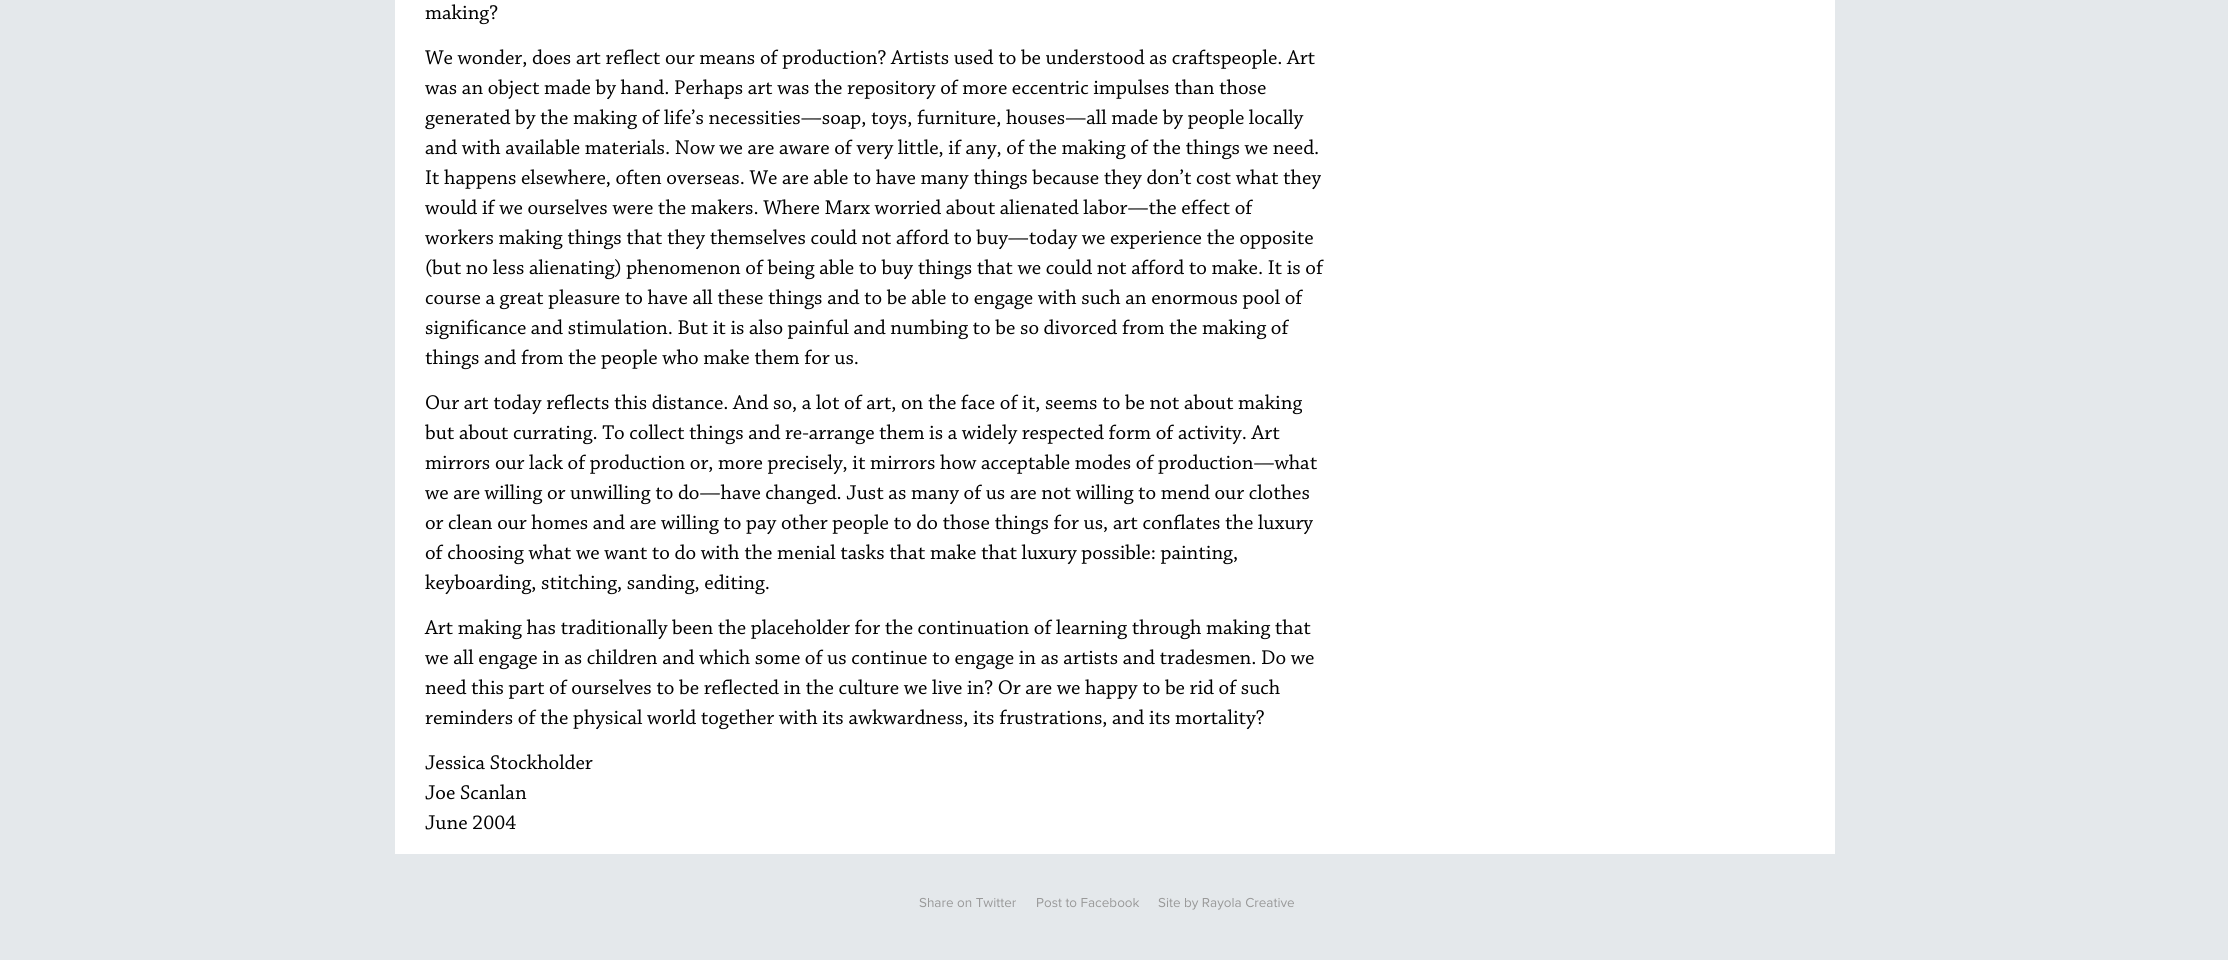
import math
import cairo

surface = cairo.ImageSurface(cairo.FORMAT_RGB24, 2228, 960)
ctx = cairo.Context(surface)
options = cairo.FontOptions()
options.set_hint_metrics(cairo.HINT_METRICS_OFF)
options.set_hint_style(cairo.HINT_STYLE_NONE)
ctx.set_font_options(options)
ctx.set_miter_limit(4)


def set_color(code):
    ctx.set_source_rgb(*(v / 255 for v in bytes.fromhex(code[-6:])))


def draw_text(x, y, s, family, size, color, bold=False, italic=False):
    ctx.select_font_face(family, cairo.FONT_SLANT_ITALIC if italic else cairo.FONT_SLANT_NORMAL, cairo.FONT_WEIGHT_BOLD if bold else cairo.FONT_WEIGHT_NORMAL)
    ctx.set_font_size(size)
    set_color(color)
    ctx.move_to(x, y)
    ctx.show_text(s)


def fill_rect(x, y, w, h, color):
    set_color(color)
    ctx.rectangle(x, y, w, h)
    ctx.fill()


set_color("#e4e8eb")
ctx.paint()
fill_rect(395, 0, 1440, 854, "#ffffff")
draw_text(425, 19, "making?", "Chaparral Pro", 21, "#000000")
draw_text(425, 64, "We wonder, does art reflect our means of production? Artists used to be understood as craftspeople. Art", "Chaparral Pro", 21, "#000000")
draw_text(425, 94, "was an object made by hand. Perhaps art was the repository of more eccentric impulses than those", "Chaparral Pro", 21, "#000000")
draw_text(425, 124, "generated by the making of life’s necessities—soap, toys, furniture, houses—all made by people locally", "Chaparral Pro", 21, "#000000")
draw_text(425, 154, "and with available materials. Now we are aware of very little, if any, of the making of the things we need.", "Chaparral Pro", 21, "#000000")
draw_text(425, 184, "It happens elsewhere, often overseas. We are able to have many things because they don’t cost what they", "Chaparral Pro", 21, "#000000")
draw_text(425, 214, "would if we ourselves were the makers. Where Marx worried about alienated labor—the effect of", "Chaparral Pro", 21, "#000000")
draw_text(425, 244, "workers making things that they themselves could not afford to buy—today we experience the opposite", "Chaparral Pro", 21, "#000000")
draw_text(425, 274, "(but no less alienating) phenomenon of being able to buy things that we could not afford to make. It is of", "Chaparral Pro", 21, "#000000")
draw_text(425, 304, "course a great pleasure to have all these things and to be able to engage with such an enormous pool of", "Chaparral Pro", 21, "#000000")
draw_text(425, 334, "significance and stimulation. But it is also painful and numbing to be so divorced from the making of", "Chaparral Pro", 21, "#000000")
draw_text(425, 364, "things and from the people who make them for us.", "Chaparral Pro", 21, "#000000")
draw_text(425, 409, "Our art today reflects this distance. And so, a lot of art, on the face of it, seems to be not about making", "Chaparral Pro", 21, "#000000")
draw_text(425, 439, "but about currating. To collect things and re-arrange them is a widely respected form of activity. Art", "Chaparral Pro", 21, "#000000")
draw_text(425, 469, "mirrors our lack of production or, more precisely, it mirrors how acceptable modes of production—what", "Chaparral Pro", 21, "#000000")
draw_text(425, 499, "we are willing or unwilling to do—have changed. Just as many of us are not willing to mend our clothes", "Chaparral Pro", 21, "#000000")
draw_text(425, 529, "or clean our homes and are willing to pay other people to do those things for us, art conflates the luxury", "Chaparral Pro", 21, "#000000")
draw_text(425, 559, "of choosing what we want to do with the menial tasks that make that luxury possible: painting,", "Chaparral Pro", 21, "#000000")
draw_text(425, 589, "keyboarding, stitching, sanding, editing.", "Chaparral Pro", 21, "#000000")
draw_text(425, 634, "Art making has traditionally been the placeholder for the continuation of learning through making that", "Chaparral Pro", 21, "#000000")
draw_text(425, 664, "we all engage in as children and which some of us continue to engage in as artists and tradesmen. Do we", "Chaparral Pro", 21, "#000000")
draw_text(425, 694, "need this part of ourselves to be reflected in the culture we live in? Or are we happy to be rid of such", "Chaparral Pro", 21, "#000000")
draw_text(425, 724, "reminders of the physical world together with its awkwardness, its frustrations, and its mortality?", "Chaparral Pro", 21, "#000000")
draw_text(425, 769, "Jessica Stockholder", "Chaparral Pro", 21, "#000000")
draw_text(425, 799, "Joe Scanlan", "Chaparral Pro", 21, "#000000")
draw_text(425, 829, "June 2004", "Chaparral Pro", 21, "#000000")
draw_text(919, 907, "Share on Twitter", "Proxima Nova", 13.5, "#999999")
draw_text(1036, 907, "Post to Facebook", "Proxima Nova", 13.5, "#999999")
draw_text(1158, 907, "Site by Rayola Creative", "Proxima Nova", 13.5, "#999999")
surface.write_to_png("output.png")
